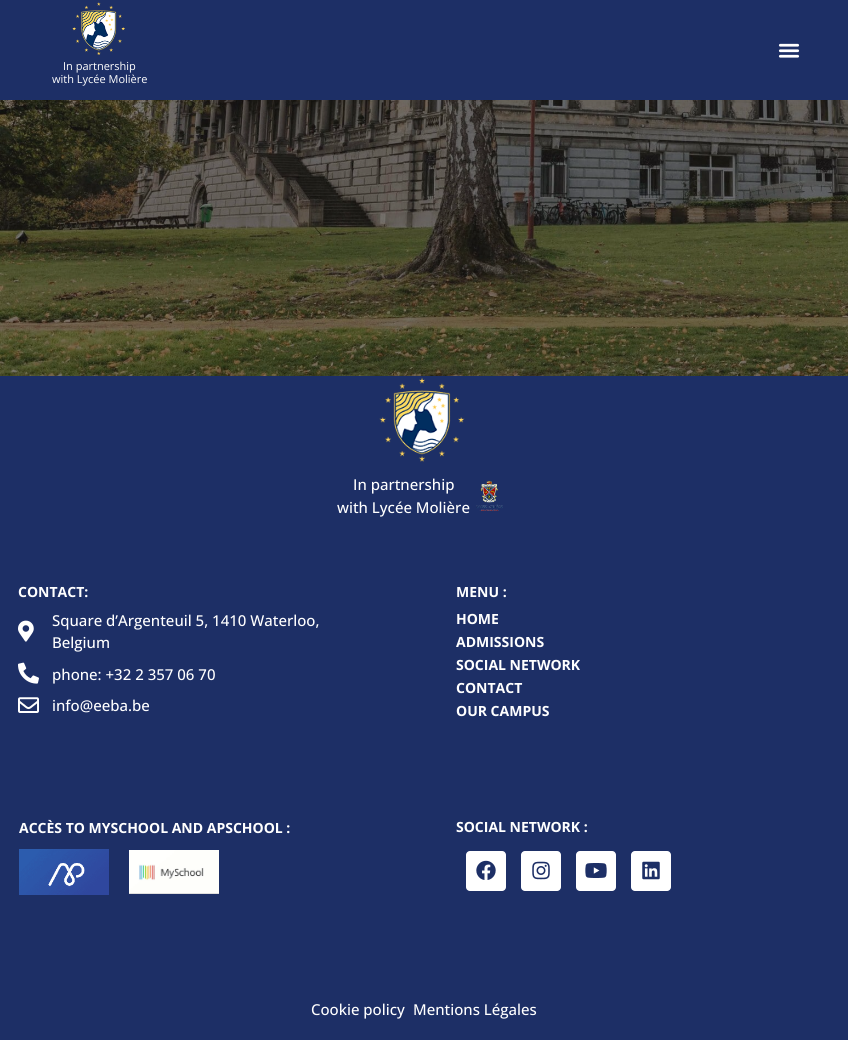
import math
import cairo

surface = cairo.ImageSurface(cairo.FORMAT_RGB24, 848, 1040)
ctx = cairo.Context(surface)
options = cairo.FontOptions()
options.set_hint_metrics(cairo.HINT_METRICS_OFF)
options.set_hint_style(cairo.HINT_STYLE_NONE)
ctx.set_font_options(options)
ctx.set_miter_limit(4)


def set_color(code):
    ctx.set_source_rgb(*(v / 255 for v in bytes.fromhex(code[-6:])))


def draw_text(x, y, s, family, size, color, bold=False, italic=False):
    ctx.select_font_face(family, cairo.FONT_SLANT_ITALIC if italic else cairo.FONT_SLANT_NORMAL, cairo.FONT_WEIGHT_BOLD if bold else cairo.FONT_WEIGHT_NORMAL)
    ctx.set_font_size(size)
    set_color(color)
    ctx.move_to(x, y)
    ctx.show_text(s)


def fill_rect(x, y, w, h, color):
    set_color(color)
    ctx.rectangle(x, y, w, h)
    ctx.fill()


def rounded_rect(x, y, w, h, r):
    ctx.new_sub_path()
    for i, (u, v) in enumerate([(x + w - r, y + h - r), (x + r, y + h - r), (x + r, y + r), (x + w - r, y + r)]):
        ctx.arc(u, v, r, i * math.pi / 2, (i + 1) * math.pi / 2)
    ctx.close_path()


def draw_image(path, x, y, w, h):
    ctx.save()
    ctx.set_source_surface(cairo.ImageSurface.create_from_png(path), x, y)
    ctx.rectangle(x, y, w, h)
    ctx.fill()
    ctx.restore()


set_color("#ffffff")
ctx.paint()
fill_rect(0, 0, 848, 100, "#1d2f66")
draw_image("assets/img1.png", 778, 43, 22, 15)
draw_image("assets/img2.png", 72, 2, 53, 53)
draw_text(63, 70, "In partnership", "Open Sans", 11, "#ffffff")
draw_text(52, 83, "with Lycée Molière", "Open Sans", 11, "#ffffff")
draw_image("assets/img3.png", 0, 100, 848, 276)
fill_rect(0, 376, 848, 664, "#1d2f66")
draw_image("assets/img4.png", 379, 377, 86, 85)
draw_text(353, 490, "In partnership", "Open Sans Medium", 15, "#ffffff")
draw_text(337, 513, "with Lycée Molière", "Open Sans Medium", 15, "#ffffff")
draw_image("assets/img5.png", 476, 481, 27, 30)
draw_text(18, 597, "CONTACT:", "Open Sans", 14, "#ffffff", bold=True)
draw_image("assets/img6.png", 18, 620, 16, 22)
draw_text(52, 626, "Square d’Argenteuil 5, 1410 Waterloo,", "Open Sans Medium", 15, "#ffffff")
draw_text(52, 648, "Belgium", "Open Sans Medium", 15, "#ffffff")
draw_image("assets/img7.png", 18, 662, 21, 22)
draw_text(52, 680, "phone: +32 2 357 06 70", "Open Sans Medium", 15, "#ffffff")
draw_image("assets/img8.png", 18, 697, 21, 16)
draw_text(52, 711, "info@eeba.be", "Open Sans Medium", 15, "#ffffff")
draw_text(456, 597, "MENU :", "Open Sans", 14, "#ffffff", bold=True)
draw_text(456, 624, "HOME", "Open Sans", 14, "#ffffff", bold=True)
draw_text(456, 647, "ADMISSIONS", "Open Sans", 14, "#ffffff", bold=True)
draw_text(456, 670, "SOCIAL NETWORK", "Open Sans", 14, "#ffffff", bold=True)
draw_text(456, 693, "CONTACT", "Open Sans", 14, "#ffffff", bold=True)
draw_text(456, 716, "OUR CAMPUS", "Open Sans", 14, "#ffffff", bold=True)
draw_text(19, 833, "ACCÈS TO MYSCHOOL AND APSCHOOL :", "Open Sans", 14, "#ffffff", bold=True)
draw_image("assets/img9.png", 19, 849, 90, 46)
draw_image("assets/img10.png", 129, 850, 90, 44)
draw_text(456, 832, "SOCIAL NETWORK :", "Open Sans", 14, "#ffffff", bold=True)
rounded_rect(466, 851, 40, 40, 4)
ctx.fill()
draw_image("assets/img11.png", 476, 860, 20, 20)
rounded_rect(521, 851, 40, 40, 4)
ctx.fill()
draw_image("assets/img12.png", 532, 861, 18, 19)
rounded_rect(576, 851, 40, 40, 4)
ctx.fill()
draw_image("assets/img13.png", 585, 863, 22, 15)
rounded_rect(631, 851, 40, 40, 4)
ctx.fill()
draw_image("assets/img14.png", 642, 861, 18, 19)
draw_text(311, 1015, "Cookie policy", "Open Sans Medium", 15, "#ffffff")
draw_text(413, 1015, "Mentions Légales", "Open Sans Medium", 15, "#ffffff")
surface.write_to_png("output.png")
